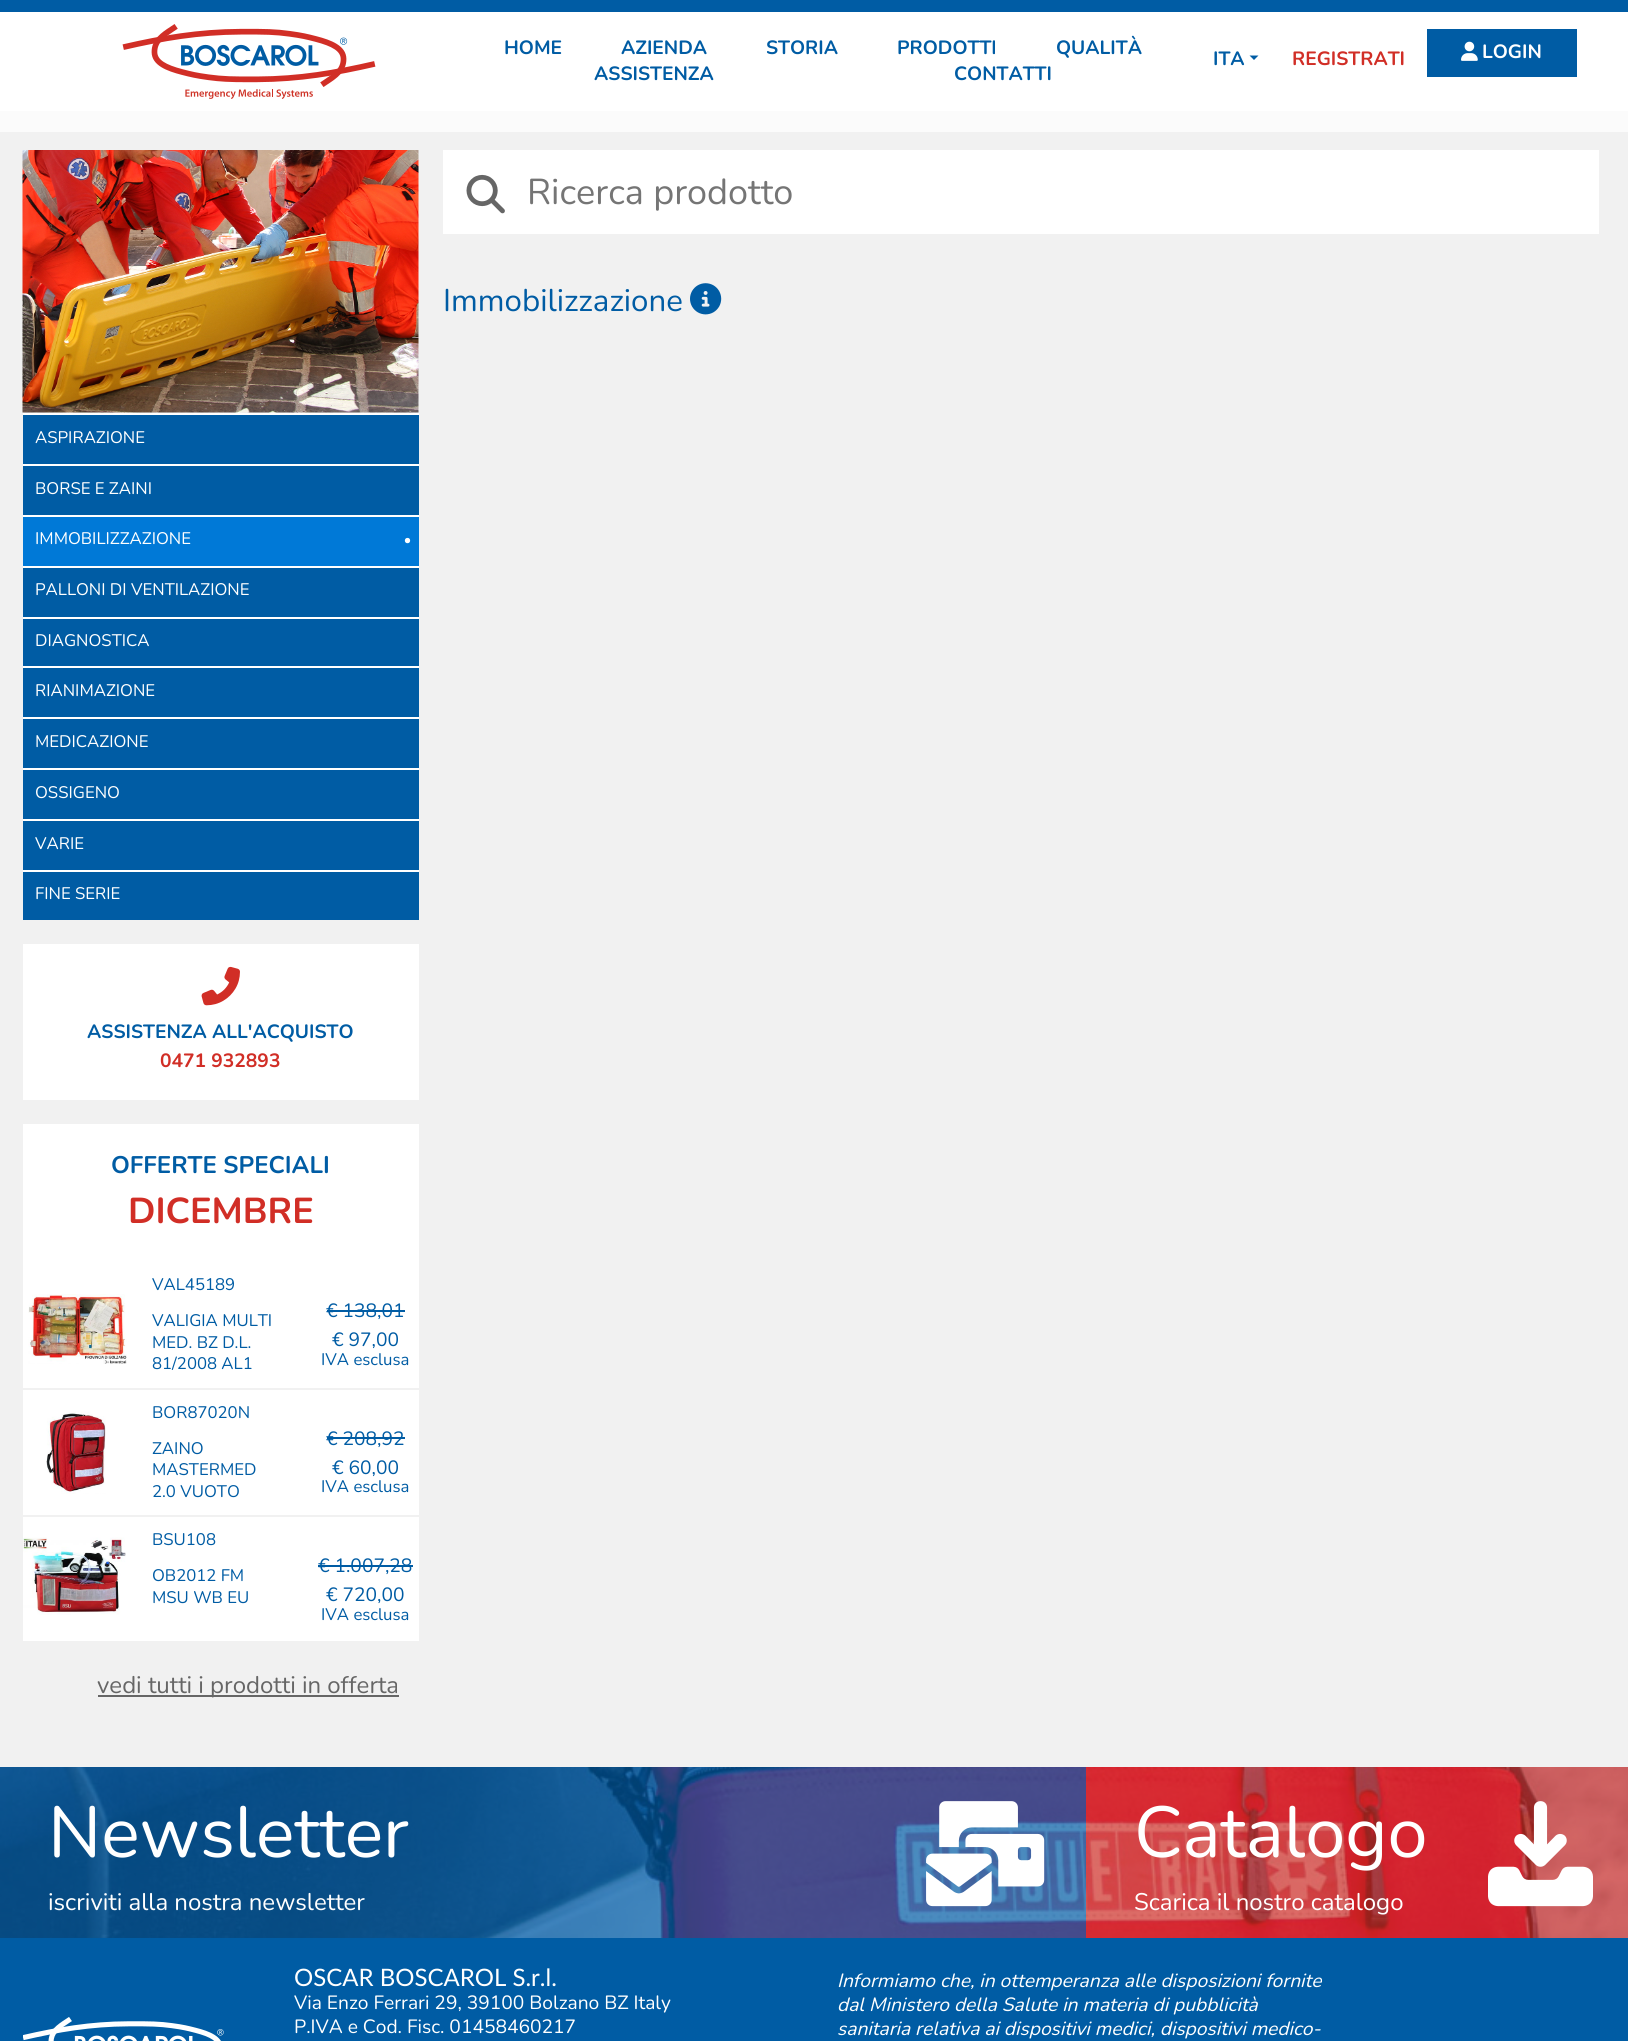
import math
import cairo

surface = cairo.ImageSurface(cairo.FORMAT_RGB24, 1628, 2041)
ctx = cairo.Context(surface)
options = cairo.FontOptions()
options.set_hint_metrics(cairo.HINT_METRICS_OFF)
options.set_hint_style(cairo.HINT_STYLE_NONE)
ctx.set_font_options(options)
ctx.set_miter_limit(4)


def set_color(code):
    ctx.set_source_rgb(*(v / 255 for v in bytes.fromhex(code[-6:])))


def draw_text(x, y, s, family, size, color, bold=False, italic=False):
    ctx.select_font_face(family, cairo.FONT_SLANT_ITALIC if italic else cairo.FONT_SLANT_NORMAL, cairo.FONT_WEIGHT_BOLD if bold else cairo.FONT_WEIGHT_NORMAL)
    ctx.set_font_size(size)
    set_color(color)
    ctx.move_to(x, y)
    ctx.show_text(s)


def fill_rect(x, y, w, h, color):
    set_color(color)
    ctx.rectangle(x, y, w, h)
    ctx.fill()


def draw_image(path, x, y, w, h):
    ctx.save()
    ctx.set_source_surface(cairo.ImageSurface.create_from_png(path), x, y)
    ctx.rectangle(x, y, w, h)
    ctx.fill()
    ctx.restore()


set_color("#f1f1f1")
ctx.paint()
fill_rect(0, 111, 1628, 21, "#fbfbfb")
fill_rect(0, 12, 1628, 99, "#ffffff")
fill_rect(0, 0, 1628, 12, "#005ca4")
draw_image("assets/img1.png", 122, 24, 254, 75)
draw_text(504, 54, "HOME", "Nunito", 19.2, "#005ca4", bold=True)
draw_text(621, 54, "AZIENDA", "Nunito", 19.2, "#005ca4", bold=True)
draw_text(766, 54, "STORIA", "Nunito", 19.2, "#005ca4", bold=True)
draw_text(897, 54, "PRODOTTI", "Nunito", 19.2, "#005ca4", bold=True)
draw_text(1056, 54, "QUALITÀ", "Nunito", 19.2, "#005ca4", bold=True)
draw_text(594, 80, "ASSISTENZA", "Nunito", 19.2, "#005ca4", bold=True)
draw_text(954, 80, "CONTATTI", "Nunito", 19.2, "#005ca4", bold=True)
draw_text(1213, 65, "ITA", "Nunito", 19.2, "#005ca4", bold=True)
ctx.new_path()
ctx.move_to(1249.5, 55.5)
ctx.line_to(1258.5, 55.5)
ctx.line_to(1254, 60)
ctx.close_path()
ctx.fill()
draw_text(1292, 65, "REGISTRATI", "Nunito", 19.2, "#d12e26", bold=True)
fill_rect(1427, 29, 150, 48, "#005ca4")
draw_image("assets/img2.png", 1461, 41, 17, 20)
draw_text(1482, 58, "LOGIN", "Nunito", 19.2, "#ffffff", bold=True)
fill_rect(443, 150, 1156, 84, "#ffffff")
draw_image("assets/img3.png", 466, 174, 39, 40)
draw_text(527, 204, "Ricerca prodotto", "Nunito", 36, "#757575")
draw_text(443, 311, "Immobilizzazione", "Nunito", 31.25, "#005ca4")
draw_image("assets/img4.png", 690, 283, 32, 32)
draw_image("assets/img5.png", 22, 150, 397, 263)
fill_rect(23, 415, 396, 49, "#005ca4")
fill_rect(23, 413, 396, 2, "#ffffff")
draw_text(35, 443, "ASPIRAZIONE", "Nunito", 16.75, "#ffffff")
fill_rect(23, 466, 396, 49, "#005ca4")
fill_rect(23, 464, 396, 2, "#ffffff")
draw_text(35, 494, "BORSE E ZAINI", "Nunito", 16.75, "#ffffff")
fill_rect(23, 517, 396, 49, "#0079d7")
fill_rect(23, 515, 396, 2, "#ffffff")
draw_text(35, 544, "IMMOBILIZZAZIONE", "Nunito", 16.75, "#ffffff")
draw_text(402, 543, ".", "Nunito", 48, "#ffffff")
fill_rect(23, 568, 396, 49, "#005ca4")
fill_rect(23, 566, 396, 2, "#ffffff")
draw_text(35, 595, "PALLONI DI VENTILAZIONE", "Nunito", 16.75, "#ffffff")
fill_rect(23, 619, 396, 47, "#005ca4")
fill_rect(23, 617, 396, 2, "#ffffff")
draw_text(35, 646, "DIAGNOSTICA", "Nunito", 16.75, "#ffffff")
fill_rect(23, 668, 396, 49, "#005ca4")
fill_rect(23, 666, 396, 2, "#ffffff")
draw_text(35, 696, "RIANIMAZIONE", "Nunito", 16.75, "#ffffff")
fill_rect(23, 719, 396, 49, "#005ca4")
fill_rect(23, 717, 396, 2, "#ffffff")
draw_text(35, 747, "MEDICAZIONE", "Nunito", 16.75, "#ffffff")
fill_rect(23, 770, 396, 49, "#005ca4")
fill_rect(23, 768, 396, 2, "#ffffff")
draw_text(35, 798, "OSSIGENO", "Nunito", 16.75, "#ffffff")
fill_rect(23, 821, 396, 49, "#005ca4")
fill_rect(23, 819, 396, 2, "#ffffff")
draw_text(35, 849, "VARIE", "Nunito", 16.75, "#ffffff")
fill_rect(23, 872, 396, 48, "#005ca4")
fill_rect(23, 870, 396, 2, "#ffffff")
draw_text(35, 899, "FINE SERIE", "Nunito", 16.75, "#ffffff")
fill_rect(23, 944, 396, 156, "#ffffff")
draw_image("assets/img6.png", 201, 966, 39, 40)
draw_text(87, 1038, "ASSISTENZA ALL'ACQUISTO", "Nunito", 19.2, "#005ca4", bold=True)
draw_text(160, 1067, "0471 932893", "Nunito", 19.2, "#d12e26", bold=True)
fill_rect(23, 1124, 396, 517, "#ffffff")
draw_text(111, 1173, "OFFERTE SPECIALI", "Nunito", 24, "#005ca4", bold=True)
draw_text(128, 1223, "DICEMBRE", "Nunito", 36, "#d12e26", bold=True)
fill_rect(23, 1388, 396, 2, "#f1f1f1")
draw_image("assets/img7.png", 28, 1294, 99, 70)
draw_text(152, 1290, "VAL45189", "Nunito", 16.75, "#005ca4")
draw_text(152, 1326, "VALIGIA MULTI", "Nunito", 16.75, "#005ca4")
draw_text(152, 1348, "MED. BZ D.L.", "Nunito", 16.75, "#005ca4")
draw_text(152, 1369, "81/2008 AL1", "Nunito", 16.75, "#005ca4")
draw_text(326, 1317, "€ 138,01", "Nunito", 19.2, "#005ca4")
fill_rect(327, 1310, 78, 2, "#005ca4")
draw_text(332, 1346, "€ 97,00", "Nunito", 19.2, "#005ca4")
draw_text(321, 1365, "IVA esclusa", "Nunito", 16.75, "#005ca4")
fill_rect(23, 1515, 396, 2, "#f1f1f1")
draw_image("assets/img8.png", 46, 1411, 60, 83)
draw_text(152, 1418, "BOR87020N", "Nunito", 16.75, "#005ca4")
draw_text(152, 1454, "ZAINO", "Nunito", 16.75, "#005ca4")
draw_text(152, 1475, "MASTERMED", "Nunito", 16.75, "#005ca4")
draw_text(152, 1497, "2.0 VUOTO", "Nunito", 16.75, "#005ca4")
draw_text(326, 1445, "€ 208,92", "Nunito", 19.2, "#005ca4")
fill_rect(327, 1437, 78, 2, "#005ca4")
draw_text(332, 1474, "€ 60,00", "Nunito", 19.2, "#005ca4")
draw_text(321, 1492, "IVA esclusa", "Nunito", 16.75, "#005ca4")
draw_image("assets/img9.png", 23, 1537, 103, 78)
draw_text(152, 1545, "BSU108", "Nunito", 16.75, "#005ca4")
draw_text(152, 1581, "OB2012 FM", "Nunito", 16.75, "#005ca4")
draw_text(152, 1603, "MSU WB EU", "Nunito", 16.75, "#005ca4")
draw_text(318, 1572, "€ 1.007,28", "Nunito", 19.2, "#005ca4")
fill_rect(318, 1565, 95, 2, "#005ca4")
draw_text(326, 1601, "€ 720,00", "Nunito", 19.2, "#005ca4")
draw_text(321, 1620, "IVA esclusa", "Nunito", 16.75, "#005ca4")
fill_rect(98, 1695, 301, 2, "#666666")
draw_text(97, 1693, "vedi tutti i prodotti in offerta", "Nunito", 24, "#666666")
fill_rect(0, 1938, 1628, 103, "#005ca4")
draw_image("assets/img10.png", 0, 1767, 1628, 171)
ctx.set_source_rgba(0, 0.361, 0.643, 0.7)
ctx.rectangle(0, 1767, 1086, 171)
ctx.fill()
draw_text(48, 1857, "Newsletter", "Nunito", 72, "#ffffff")
draw_image("assets/img11.png", 926, 1801, 119, 106)
draw_text(48, 1910, "iscriviti alla nostra newsletter", "Nunito", 24, "#ffffff")
ctx.set_source_rgba(0.82, 0.18, 0.149, 0.7)
ctx.rectangle(1086, 1767, 542, 171)
ctx.fill()
draw_text(1134, 1857, "Catalogo", "Nunito", 72, "#ffffff")
draw_image("assets/img12.png", 1488, 1801, 105, 106)
draw_text(1134, 1910, "Scarica il nostro catalogo", "Nunito", 24, "#ffffff")
draw_image("assets/img13.png", 23, 2017, 201, 24)
draw_text(294, 1986, "OSCAR BOSCAROL S.r.l.", "Lato", 24, "#ffffff")
draw_text(294, 2009, "Via Enzo Ferrari 29, 39100 Bolzano BZ Italy", "Nunito", 19.2, "#ffffff")
draw_text(294, 2033, "P.IVA e Cod. Fisc. 01458460217", "Nunito", 19.2, "#ffffff")
draw_text(837, 1987, "Informiamo che, in ottemperanza alle disposizioni fornite", "Nunito", 19.2, "#ffffff", italic=True)
draw_text(837, 2011, "dal Ministero della Salute in materia di pubblicità", "Nunito", 19.2, "#ffffff", italic=True)
draw_text(837, 2035, "sanitaria relativa ai dispositivi medici, dispositivi medico-", "Nunito", 19.2, "#ffffff", italic=True)
surface.write_to_png("output.png")
